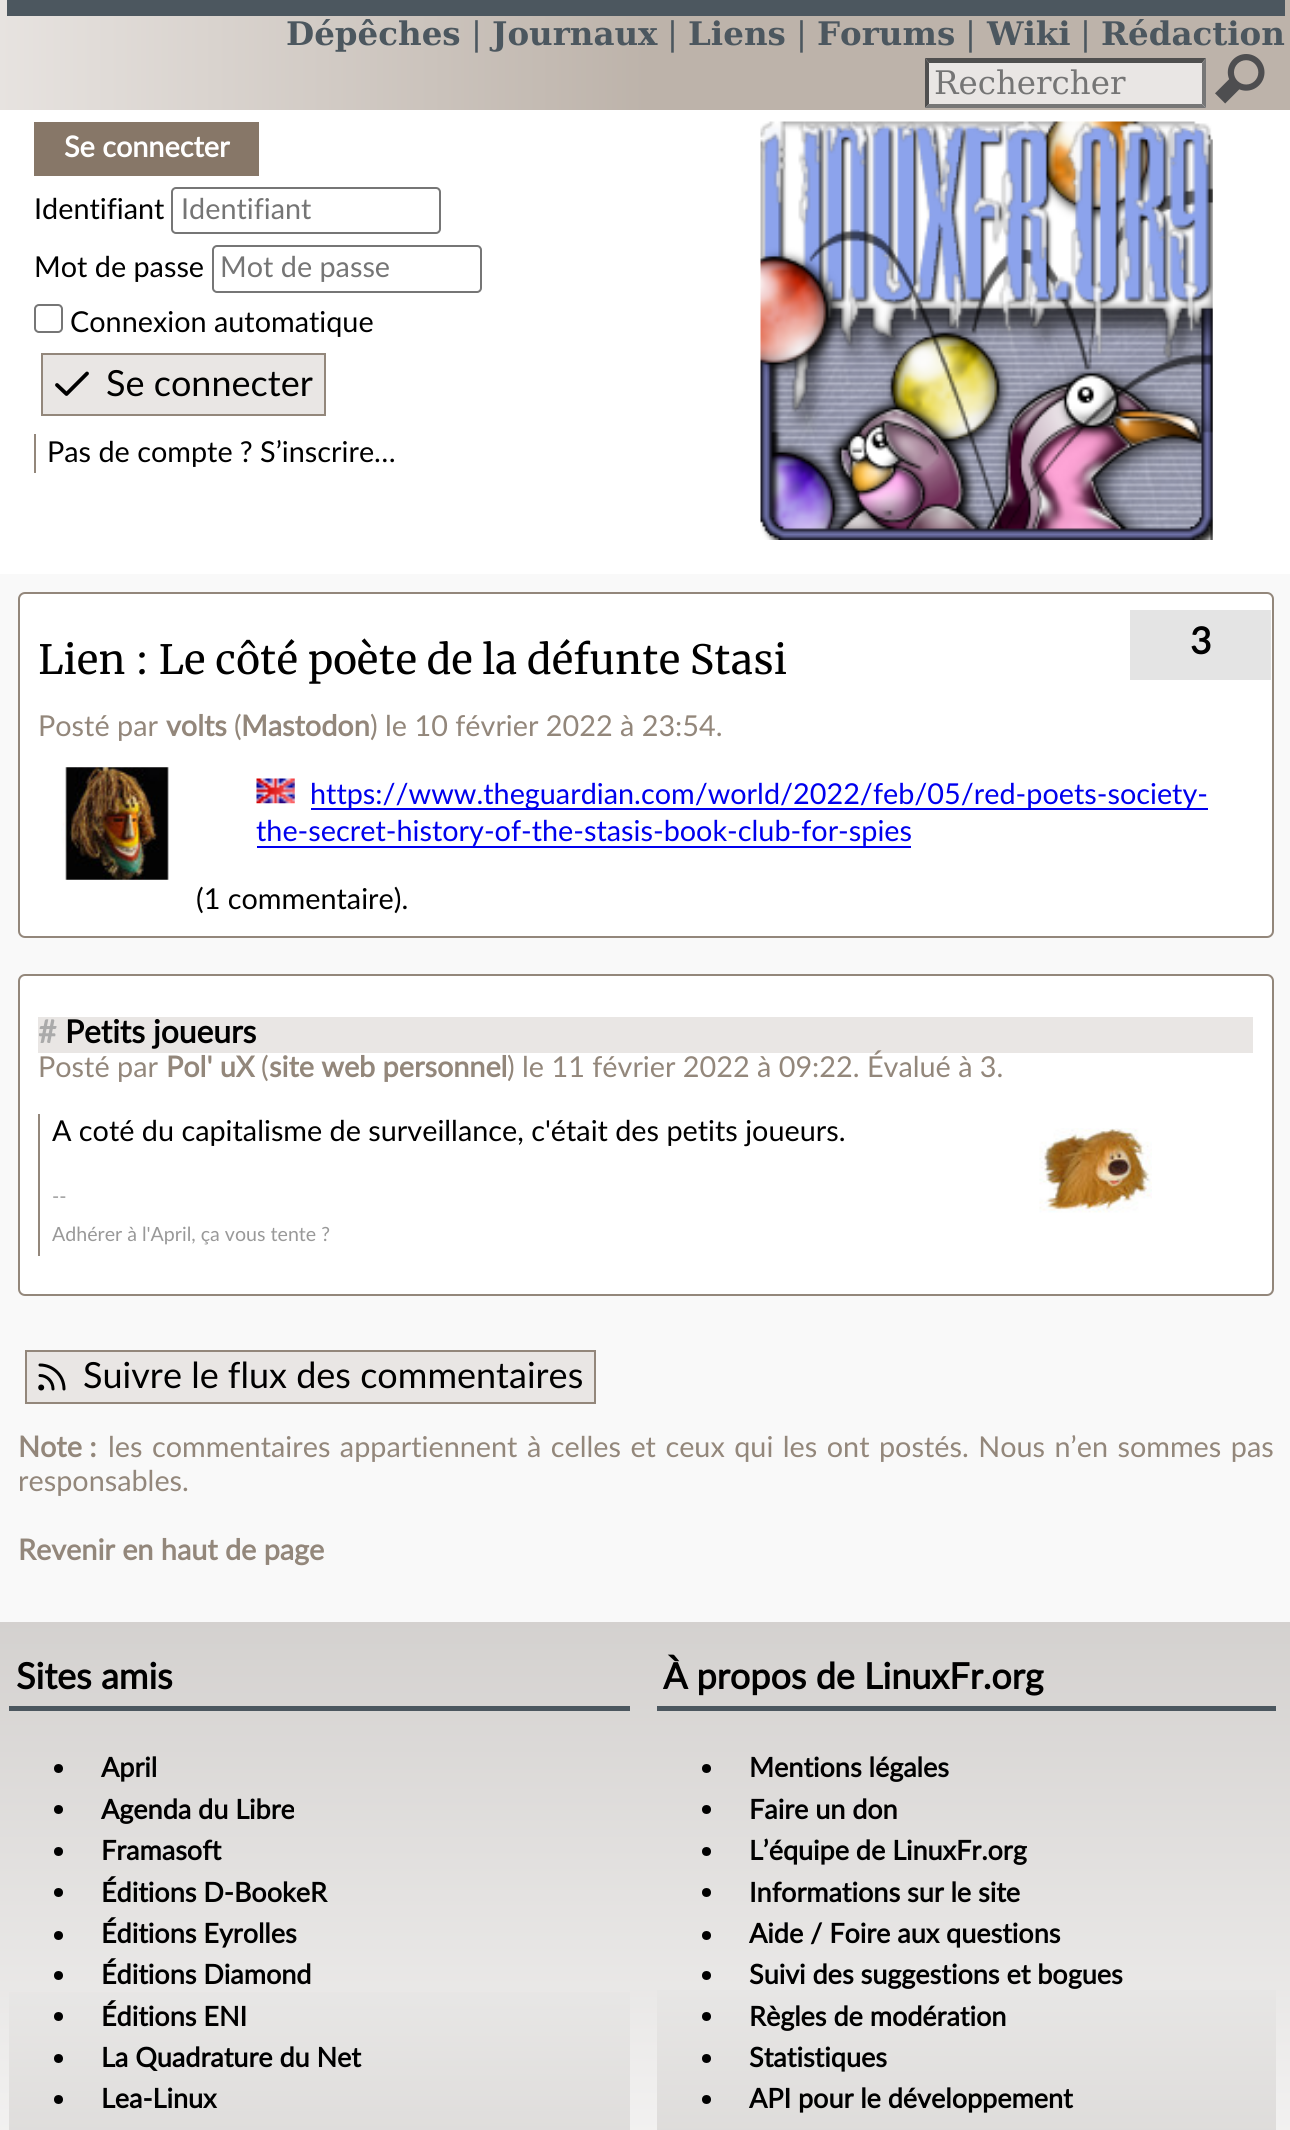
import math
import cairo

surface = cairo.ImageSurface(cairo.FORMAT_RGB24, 1290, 2130)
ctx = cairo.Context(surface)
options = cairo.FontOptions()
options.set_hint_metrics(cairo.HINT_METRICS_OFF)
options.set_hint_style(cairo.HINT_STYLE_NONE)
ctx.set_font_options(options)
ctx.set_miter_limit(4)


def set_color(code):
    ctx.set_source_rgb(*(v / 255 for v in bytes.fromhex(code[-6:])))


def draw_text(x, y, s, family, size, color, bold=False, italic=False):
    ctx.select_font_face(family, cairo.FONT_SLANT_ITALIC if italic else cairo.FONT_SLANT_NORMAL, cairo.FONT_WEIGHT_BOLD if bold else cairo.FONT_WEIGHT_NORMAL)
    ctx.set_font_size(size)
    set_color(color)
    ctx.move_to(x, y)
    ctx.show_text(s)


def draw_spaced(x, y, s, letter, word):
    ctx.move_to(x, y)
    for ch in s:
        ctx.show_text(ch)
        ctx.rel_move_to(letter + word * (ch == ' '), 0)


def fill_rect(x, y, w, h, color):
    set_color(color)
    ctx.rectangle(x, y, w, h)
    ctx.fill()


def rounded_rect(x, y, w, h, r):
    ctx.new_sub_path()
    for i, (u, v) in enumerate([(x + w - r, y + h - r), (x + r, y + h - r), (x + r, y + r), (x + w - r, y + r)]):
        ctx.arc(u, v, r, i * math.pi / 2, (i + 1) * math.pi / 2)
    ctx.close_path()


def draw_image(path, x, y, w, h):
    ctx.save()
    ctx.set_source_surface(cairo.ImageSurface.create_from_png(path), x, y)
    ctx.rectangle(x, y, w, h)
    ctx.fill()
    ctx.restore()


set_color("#ffffff")
ctx.paint()
gradient = cairo.LinearGradient(0, 55, 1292, 55)
gradient.add_color_stop_rgba(0, 0.906, 0.89, 0.878, 1)
gradient.add_color_stop_rgba(0.5, 0.741, 0.702, 0.667, 1)
ctx.set_source(gradient)
ctx.rectangle(0, 0, 1290, 110)
ctx.fill()
fill_rect(7, 0, 1278, 16, "#4c575f")
draw_text(286, 45, "Dépêches", "DejaVu Serif", 32.5, "#4c575f", bold=True)
draw_text(471, 45, "|", "DejaVu Serif", 32.5, "#4c575f")
draw_text(492, 45, "Journaux", "DejaVu Serif", 32.5, "#4c575f", bold=True)
draw_text(667, 45, "|", "DejaVu Serif", 32.5, "#4c575f")
draw_text(688, 45, "Liens", "DejaVu Serif", 32.5, "#4c575f", bold=True)
draw_text(796, 45, "|", "DejaVu Serif", 32.5, "#4c575f")
draw_text(817, 45, "Forums", "DejaVu Serif", 32.5, "#4c575f", bold=True)
draw_text(965, 45, "|", "DejaVu Serif", 32.5, "#4c575f")
draw_text(987, 45, "Wiki", "DejaVu Serif", 32.5, "#4c575f", bold=True)
draw_text(1080, 45, "|", "DejaVu Serif", 32.5, "#4c575f")
draw_text(1101, 45, "Rédaction", "DejaVu Serif", 32.5, "#4c575f", bold=True)
fill_rect(925, 59, 281, 49, "#e9e6e4")
set_color("#4f4f4f")
ctx.new_path()
ctx.move_to(925, 58)
ctx.line_to(1206, 58)
ctx.line_to(1202, 63)
ctx.line_to(929, 63)
ctx.close_path()
ctx.fill()
set_color("#767676")
ctx.new_path()
ctx.move_to(1206, 58)
ctx.line_to(1206, 108)
ctx.line_to(1202, 104)
ctx.line_to(1202, 63)
ctx.close_path()
ctx.fill()
ctx.new_path()
ctx.move_to(1206, 108)
ctx.line_to(925, 108)
ctx.line_to(929, 104)
ctx.line_to(1202, 104)
ctx.close_path()
ctx.fill()
set_color("#4f4f4f")
ctx.new_path()
ctx.move_to(925, 108)
ctx.line_to(925, 58)
ctx.line_to(929, 63)
ctx.line_to(929, 104)
ctx.close_path()
ctx.fill()
draw_text(934, 94, "Rechercher", "DejaVu Serif", 32.5, "#757575")
draw_image("assets/img1.png", 1215, 54, 50, 50)
fill_rect(34, 122, 225, 54, "#877768")
draw_text(64, 157, "Se connecter", "Lato", 28.8, "#ffffff", bold=True)
draw_text(34, 219, "Identifiant", "Lato", 28.8, "#000000")
rounded_rect(172, 188, 268, 45, 4)
set_color("#767676")
ctx.stroke()
draw_text(181, 219, "Identifiant", "Lato", 28.8, "#757575")
draw_text(34, 277, "Mot de passe", "Lato", 28.8, "#000000")
rounded_rect(213, 246, 268, 46, 4)
set_color("#767676")
ctx.stroke()
draw_text(220, 277, "Mot de passe", "Lato", 28.8, "#757575")
rounded_rect(35, 305, 27, 27, 4)
set_color("#767676")
ctx.stroke()
draw_text(70, 332, "Connexion automatique", "Lato", 28.8, "#000000")
fill_rect(43, 355, 281, 59, "#e9e6e4")
ctx.new_path()
ctx.move_to(87, 373.5)
ctx.line_to(66.5, 394)
ctx.line_to(57, 385)
set_color("#000000")
ctx.set_line_width(3.8)
ctx.set_line_cap(cairo.LINE_CAP_ROUND)
ctx.set_line_join(cairo.LINE_JOIN_ROUND)
ctx.stroke()
ctx.rectangle(42, 354, 283, 61)
set_color("#93877b")
ctx.set_line_width(2)
ctx.set_line_cap(cairo.LINE_CAP_BUTT)
ctx.set_line_join(cairo.LINE_JOIN_MITER)
ctx.stroke()
draw_text(106, 396, "Se connecter", "Lato", 36, "#000000")
fill_rect(34, 434, 2, 39, "#93877b")
draw_text(47, 462, "Pas de compte ? S’inscrire…", "Lato", 28.8, "#000000")
draw_image("assets/img2.png", 760, 121, 453, 419)
fill_rect(0, 574, 1290, 1048, "#f9f9f9")
set_color("#ffffff")
rounded_rect(19, 593, 1254, 344, 6)
ctx.fill_preserve()
set_color("#93877b")
ctx.stroke()
draw_text(38, 674, "Lien : Le côté poète de la défunte Stasi", "Merriweather", 40.3, "#000000")
draw_text(38, 736, "Posté par", "Lato", 28.8, "#93877b")
draw_text(166, 736, "volts", "Lato", 28.8, "#93877b", bold=True)
draw_text(234, 736, "(", "Lato", 28.8, "#93877b")
draw_text(241, 736, "Mastodon", "Lato", 28.8, "#93877b", bold=True)
draw_text(370, 736, ") le 10 février 2022 à 23:54.", "Lato", 28.8, "#93877b")
fill_rect(1130, 610, 141, 70, "#e4e4e4")
draw_text(1190, 654, "3", "Lato", 37, "#000000", bold=True)
draw_image("assets/img3.png", 61, 767, 108, 113)
draw_image("assets/img4.png", 256, 778, 39, 26)
fill_rect(311, 808, 897, 2, "#0000ee")
draw_text(310, 804, "https://www.theguardian.com/world/2022/feb/05/red-poets-society-", "Lato", 28.8, "#0000ee")
draw_text(256, 841, "the-secret-history-of-the-stasis-book-club-for-spies", "Lato", 28.8, "#0000ee")
fill_rect(257, 846, 654, 2, "#0000ee")
draw_text(196, 909, "(1 commentaire).", "Lato", 28.8, "#000000")
set_color("#ffffff")
rounded_rect(19, 975, 1254, 320, 6)
ctx.fill_preserve()
set_color("#93877b")
ctx.stroke()
fill_rect(38, 1017, 1215, 36, "#e9e6e4")
draw_text(38, 1043, "#", "Lato", 31.75, "#aaaaaa", bold=True)
draw_text(65, 1043, "Petits joueurs", "Lato", 31.75, "#000000", bold=True)
draw_text(38, 1077, "Posté par", "Lato", 28.8, "#93877b")
draw_text(166, 1077, "Pol' uX", "Lato", 28.8, "#93877b", bold=True)
draw_text(261, 1077, "(", "Lato", 28.8, "#93877b")
draw_text(269, 1077, "site web personnel", "Lato", 28.8, "#93877b", bold=True)
draw_text(507, 1077, ") le 11 février 2022 à 09:22. Évalué à 3.", "Lato", 28.8, "#93877b")
fill_rect(38, 1114, 2, 142, "#93877b")
draw_text(52, 1141, "A coté du capitalisme de surveillance, c'était des petits joueurs.", "Lato", 28.8, "#000000")
draw_text(52, 1203, "--", "Lato", 19.6, "#999999")
draw_text(52, 1241, "Adhérer à l'April, ça vous tente ?", "Lato", 19.6, "#999999")
draw_image("assets/img5.png", 1039, 1128, 113, 85)
fill_rect(27, 1352, 567, 50, "#e9e6e4")
ctx.new_path()
ctx.move_to(40, 1375.5)
ctx.curve_to(47, 1375.5, 53, 1381.5, 53, 1389)
ctx.move_to(40, 1365)
ctx.curve_to(53, 1365, 64, 1375.5, 64, 1389)
set_color("#000000")
ctx.set_line_width(3)
ctx.set_line_cap(cairo.LINE_CAP_ROUND)
ctx.set_line_join(cairo.LINE_JOIN_ROUND)
ctx.stroke()
ctx.arc(41.2, 1387.5, 1.5, 0, 2 * math.pi)
ctx.set_line_cap(cairo.LINE_CAP_BUTT)
ctx.set_line_join(cairo.LINE_JOIN_MITER)
ctx.stroke()
ctx.rectangle(26, 1351, 569, 52)
set_color("#93877b")
ctx.set_line_width(2)
ctx.stroke()
draw_text(83, 1388, "Suivre le flux des commentaires", "Lato", 36, "#000000")
draw_text(18, 1457, "Note :", "Lato", 28.8, "#93877b", bold=True)
ctx.select_font_face("Lato")
draw_spaced(108, 1457, "les commentaires appartiennent à celles et ceux qui les ont postés. Nous n’en sommes pas", 0, 2.1)
draw_text(18, 1491, "responsables.", "Lato", 28.8, "#93877b")
draw_text(18, 1560, "Revenir en haut de page", "Lato", 28.8, "#93877b", bold=True)
gradient = cairo.LinearGradient(646, 1622, 646, 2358)
gradient.add_color_stop_rgba(0, 0.831, 0.82, 0.812, 1)
gradient.add_color_stop_rgba(1, 1, 1, 1, 1)
ctx.set_source(gradient)
ctx.rectangle(0, 1622, 1290, 508)
ctx.fill()
gradient = cairo.LinearGradient(319, 1622, 320, 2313)
gradient.add_color_stop_rgba(0, 0.831, 0.82, 0.812, 1)
gradient.add_color_stop_rgba(0.5, 0.914, 0.91, 0.906, 1)
gradient.add_color_stop_rgba(1, 0.831, 0.82, 0.812, 1)
ctx.set_source(gradient)
ctx.rectangle(9, 1992, 621, 138)
ctx.fill()
fill_rect(9, 1706, 621, 5, "#4c575f")
draw_text(16, 1689, "Sites amis", "Lato", 36, "#000000", bold=True)
ctx.new_path()
ctx.arc(58.5, 1768.5, 4.5, 0, 2 * math.pi)
ctx.fill()
draw_text(101, 1777, "April", "Lato", 27, "#000000", bold=True)
ctx.new_path()
ctx.arc(58.5, 1809.5, 4.5, 0, 2 * math.pi)
ctx.fill()
draw_text(101, 1819, "Agenda du Libre", "Lato", 27, "#000000", bold=True)
ctx.new_path()
ctx.arc(58.5, 1851.5, 4.5, 0, 2 * math.pi)
ctx.fill()
draw_text(101, 1860, "Framasoft", "Lato", 27, "#000000", bold=True)
ctx.new_path()
ctx.arc(58.5, 1892.5, 4.5, 0, 2 * math.pi)
ctx.fill()
draw_text(101, 1902, "Éditions D-BookeR", "Lato", 27, "#000000", bold=True)
ctx.new_path()
ctx.arc(58.5, 1935.5, 4.5, 0, 2 * math.pi)
ctx.fill()
draw_text(101, 1943, "Éditions Eyrolles", "Lato", 27, "#000000", bold=True)
ctx.new_path()
ctx.arc(58.5, 1975.5, 4.5, 0, 2 * math.pi)
ctx.fill()
draw_text(101, 1984, "Éditions Diamond", "Lato", 27, "#000000", bold=True)
ctx.new_path()
ctx.arc(58.5, 2016.5, 4.5, 0, 2 * math.pi)
ctx.fill()
draw_text(101, 2026, "Éditions ENI", "Lato", 27, "#000000", bold=True)
ctx.new_path()
ctx.arc(58.5, 2058.5, 4.5, 0, 2 * math.pi)
ctx.fill()
draw_text(101, 2067, "La Quadrature du Net", "Lato", 27, "#000000", bold=True)
ctx.new_path()
ctx.arc(58.5, 2099.5, 4.5, 0, 2 * math.pi)
ctx.fill()
draw_text(101, 2108, "Lea-Linux", "Lato", 27, "#000000", bold=True)
gradient = cairo.LinearGradient(966, 1622, 966, 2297)
gradient.add_color_stop_rgba(0, 0.831, 0.82, 0.812, 1)
gradient.add_color_stop_rgba(0.5, 0.914, 0.91, 0.906, 1)
gradient.add_color_stop_rgba(1, 0.831, 0.82, 0.812, 1)
ctx.set_source(gradient)
ctx.rectangle(657, 1990, 619, 140)
ctx.fill()
fill_rect(657, 1706, 619, 5, "#4c575f")
draw_text(663, 1689, "À propos de LinuxFr.org", "Lato", 36, "#000000", bold=True)
ctx.new_path()
ctx.arc(706.5, 1768.5, 4.5, 0, 2 * math.pi)
ctx.fill()
draw_text(749, 1777, "Mentions légales", "Lato", 27, "#000000", bold=True)
ctx.new_path()
ctx.arc(706.5, 1809.5, 4.5, 0, 2 * math.pi)
ctx.fill()
draw_text(749, 1819, "Faire un don", "Lato", 27, "#000000", bold=True)
ctx.new_path()
ctx.arc(706.5, 1851.5, 4.5, 0, 2 * math.pi)
ctx.fill()
draw_text(749, 1860, "L’équipe de LinuxFr.org", "Lato", 27, "#000000", bold=True)
ctx.new_path()
ctx.arc(706.5, 1892.5, 4.5, 0, 2 * math.pi)
ctx.fill()
draw_text(749, 1902, "Informations sur le site", "Lato", 27, "#000000", bold=True)
ctx.new_path()
ctx.arc(706.5, 1935.5, 4.5, 0, 2 * math.pi)
ctx.fill()
draw_text(749, 1943, "Aide / Foire aux questions", "Lato", 27, "#000000", bold=True)
ctx.new_path()
ctx.arc(706.5, 1975.5, 4.5, 0, 2 * math.pi)
ctx.fill()
draw_text(749, 1984, "Suivi des suggestions et bogues", "Lato", 27, "#000000", bold=True)
ctx.new_path()
ctx.arc(706.5, 2016.5, 4.5, 0, 2 * math.pi)
ctx.fill()
draw_text(749, 2026, "Règles de modération", "Lato", 27, "#000000", bold=True)
ctx.new_path()
ctx.arc(706.5, 2058.5, 4.5, 0, 2 * math.pi)
ctx.fill()
draw_text(749, 2067, "Statistiques", "Lato", 27, "#000000", bold=True)
ctx.new_path()
ctx.arc(706.5, 2099.5, 4.5, 0, 2 * math.pi)
ctx.fill()
draw_text(749, 2108, "API pour le développement", "Lato", 27, "#000000", bold=True)
surface.write_to_png("output.png")
